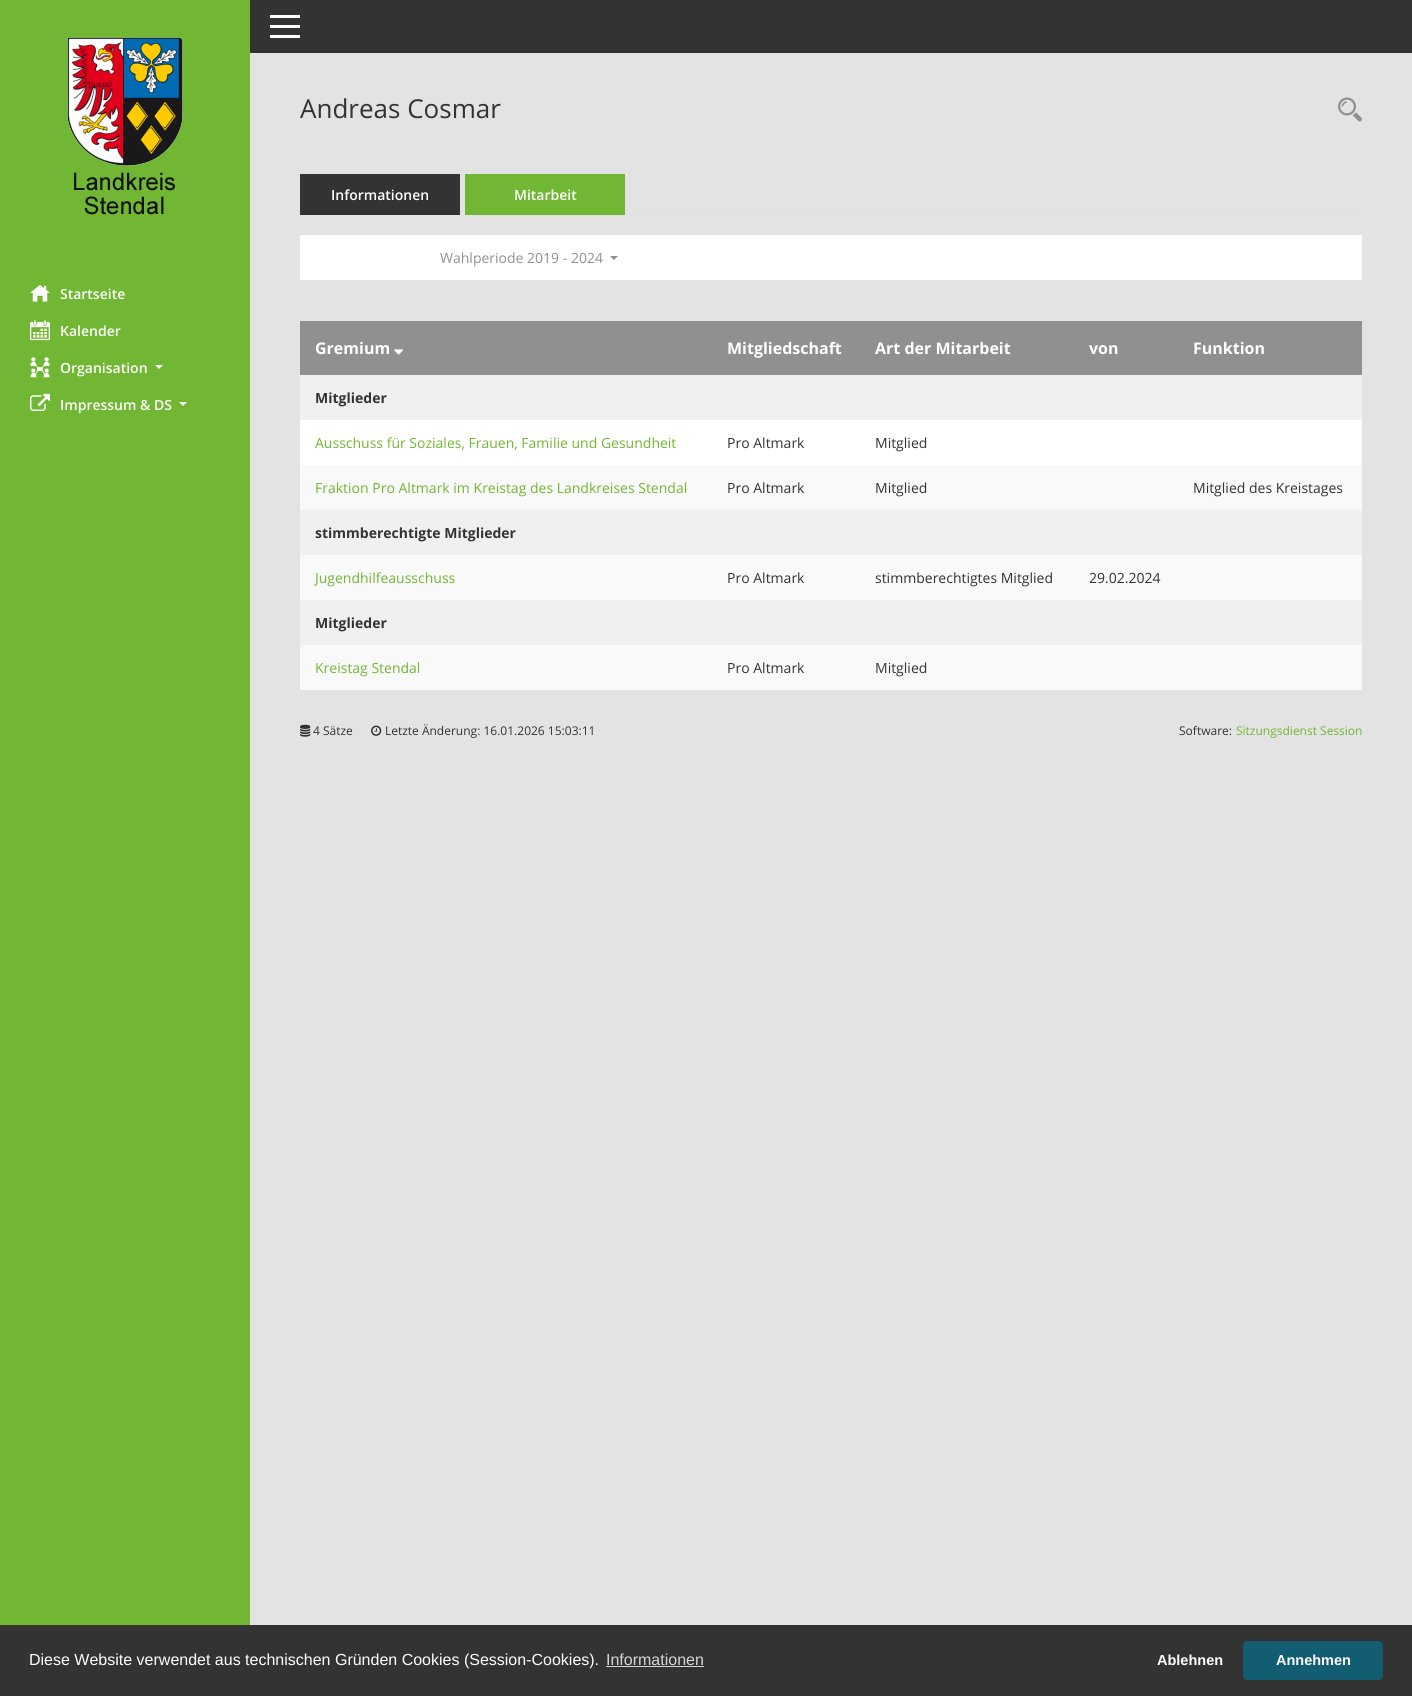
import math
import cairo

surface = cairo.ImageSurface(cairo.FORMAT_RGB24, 1412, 1696)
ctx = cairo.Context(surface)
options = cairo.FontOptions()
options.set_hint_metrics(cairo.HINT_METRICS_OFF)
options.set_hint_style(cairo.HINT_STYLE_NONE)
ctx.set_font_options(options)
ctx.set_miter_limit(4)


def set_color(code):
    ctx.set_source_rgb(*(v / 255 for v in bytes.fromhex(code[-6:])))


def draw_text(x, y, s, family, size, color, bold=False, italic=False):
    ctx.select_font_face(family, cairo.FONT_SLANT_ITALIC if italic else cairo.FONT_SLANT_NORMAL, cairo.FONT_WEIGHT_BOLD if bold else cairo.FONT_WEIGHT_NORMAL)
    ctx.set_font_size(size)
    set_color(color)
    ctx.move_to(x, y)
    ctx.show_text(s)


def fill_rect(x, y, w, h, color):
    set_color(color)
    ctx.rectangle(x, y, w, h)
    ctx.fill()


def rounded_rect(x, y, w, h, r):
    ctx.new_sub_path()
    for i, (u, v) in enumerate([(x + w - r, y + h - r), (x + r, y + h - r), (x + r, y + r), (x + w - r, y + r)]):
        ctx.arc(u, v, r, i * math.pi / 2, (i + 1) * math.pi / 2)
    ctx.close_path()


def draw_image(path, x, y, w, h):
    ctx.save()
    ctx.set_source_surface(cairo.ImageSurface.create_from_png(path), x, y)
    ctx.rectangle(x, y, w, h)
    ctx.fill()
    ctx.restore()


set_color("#e3e3e3")
ctx.paint()
fill_rect(0, 0, 250, 1625, "#71b733")
draw_image("assets/img1.png", 67, 37, 116, 178)
draw_image("assets/img2.png", 30, 285, 20, 17)
draw_text(60, 299, "Startseite", "Open Sans SemiBold", 14, "#ffffff")
draw_image("assets/img3.png", 30, 320, 20, 21)
draw_text(60, 336, "Kalender", "Open Sans SemiBold", 14, "#ffffff")
draw_image("assets/img4.png", 30, 357, 20, 21)
draw_text(60, 373, "Organisation", "Open Sans SemiBold", 14, "#ffffff")
ctx.new_path()
ctx.move_to(155, 365)
ctx.line_to(163, 365)
ctx.line_to(159, 369)
ctx.close_path()
ctx.fill()
draw_image("assets/img5.png", 30, 393, 20, 18)
draw_text(60, 410, "Impressum & DS", "Open Sans SemiBold", 14, "#ffffff")
ctx.new_path()
ctx.move_to(179, 402)
ctx.line_to(187, 402)
ctx.line_to(183, 406)
ctx.close_path()
ctx.fill()
fill_rect(250, 0, 1162, 53, "#333333")
fill_rect(270, 15, 30, 3, "#ffffff")
fill_rect(270, 25, 30, 3, "#ffffff")
fill_rect(270, 35, 30, 3, "#ffffff")
draw_text(300, 118, "Andreas Cosmar", "Open Sans", 26, "#333333")
draw_image("assets/img6.png", 1338, 97, 24, 25)
fill_rect(460, 214, 902, 1, "#dee2e6")
fill_rect(300, 174, 160, 41, "#333333")
draw_text(331, 200, "Informationen", "Open Sans SemiBold", 14, "#ffffff")
fill_rect(465, 174, 160, 41, "#71b733")
draw_text(514, 200, "Mitarbeit", "Open Sans SemiBold", 14, "#ffffff")
fill_rect(300, 235, 1062, 45, "#ffffff")
draw_text(440, 263, "Wahlperiode 2019 - 2024", "Open Sans", 14, "#909090")
ctx.new_path()
ctx.move_to(610, 256)
ctx.line_to(618, 256)
ctx.line_to(614, 260)
ctx.close_path()
ctx.fill()
fill_rect(300, 420, 1062, 45, "#ffffff")
fill_rect(300, 321, 1062, 54, "#909090")
draw_text(315, 354, "Gremium", "Open Sans", 16, "#ffffff", bold=True)
draw_image("assets/img7.png", 394, 349, 9, 6)
draw_text(727, 354, "Mitgliedschaft", "Open Sans", 16, "#ffffff", bold=True)
draw_text(875, 354, "Art der Mitarbeit", "Open Sans", 16, "#ffffff", bold=True)
draw_text(1089, 354, "von", "Open Sans", 16, "#ffffff", bold=True)
draw_text(1193, 354, "Funktion", "Open Sans", 16, "#ffffff", bold=True)
fill_rect(300, 375, 1062, 45, "#f0f0f0")
draw_text(315, 403, "Mitglieder", "Open Sans", 14, "#333333", bold=True)
draw_text(315, 448, "Ausschuss für Soziales, Frauen, Familie und Gesundheit", "Open Sans", 14, "#71b733")
draw_text(727, 448, "Pro Altmark", "Open Sans", 14, "#333333")
draw_text(875, 448, "Mitglied", "Open Sans", 14, "#333333")
fill_rect(300, 465, 1062, 45, "#f9f9f9")
draw_text(315, 493, "Fraktion Pro Altmark im Kreistag des Landkreises Stendal", "Open Sans", 14, "#71b733")
draw_text(727, 493, "Pro Altmark", "Open Sans", 14, "#333333")
draw_text(875, 493, "Mitglied", "Open Sans", 14, "#333333")
draw_text(1193, 493, "Mitglied des Kreistages", "Open Sans", 14, "#333333")
fill_rect(300, 510, 1062, 45, "#f0f0f0")
draw_text(315, 538, "stimmberechtigte Mitglieder", "Open Sans", 14, "#333333", bold=True)
fill_rect(300, 555, 1062, 45, "#f9f9f9")
draw_text(315, 583, "Jugendhilfeausschuss", "Open Sans", 14, "#71b733")
draw_text(727, 583, "Pro Altmark", "Open Sans", 14, "#333333")
draw_text(875, 583, "stimmberechtigtes Mitglied", "Open Sans", 14, "#333333")
draw_text(1089, 583, "29.02.2024", "Open Sans", 14, "#333333")
fill_rect(300, 600, 1062, 45, "#f0f0f0")
draw_text(315, 628, "Mitglieder", "Open Sans", 14, "#333333", bold=True)
fill_rect(300, 645, 1062, 45, "#f9f9f9")
draw_text(315, 673, "Kreistag Stendal", "Open Sans", 14, "#71b733")
draw_text(727, 673, "Pro Altmark", "Open Sans", 14, "#333333")
draw_text(875, 673, "Mitglied", "Open Sans", 14, "#333333")
draw_image("assets/img8.png", 300, 724, 11, 13)
draw_text(313, 735, "4 Sätze", "Open Sans", 12, "#333333")
draw_image("assets/img9.png", 371, 725, 11, 11)
draw_text(385, 735, "Letzte Änderung: 16.01.2026 15:03:11", "Open Sans", 12, "#333333")
draw_text(1179, 735, "Software:", "Open Sans", 12, "#333333")
draw_text(1236, 735, "Sitzungsdienst Session", "Open Sans", 12, "#71b733")
fill_rect(0, 1625, 1412, 71, "#333333")
draw_text(29, 1665, "Diese Website verwendet aus technischen Gründen Cookies (Session-Cookies).", "Liberation Sans", 16, "#ffffff")
draw_text(606, 1665, "Informationen", "Liberation Sans", 16, "#d6d6d6")
fill_rect(606, 1666, 98, 1, "#d6d6d6")
draw_text(1157, 1665, "Ablehnen", "Liberation Sans", 14.5, "#ffffff", bold=True)
set_color("#135d72")
rounded_rect(1243, 1641, 140, 39, 5)
ctx.fill()
draw_text(1276, 1665, "Annehmen", "Liberation Sans", 14.5, "#ffffff", bold=True)
surface.write_to_png("output.png")
